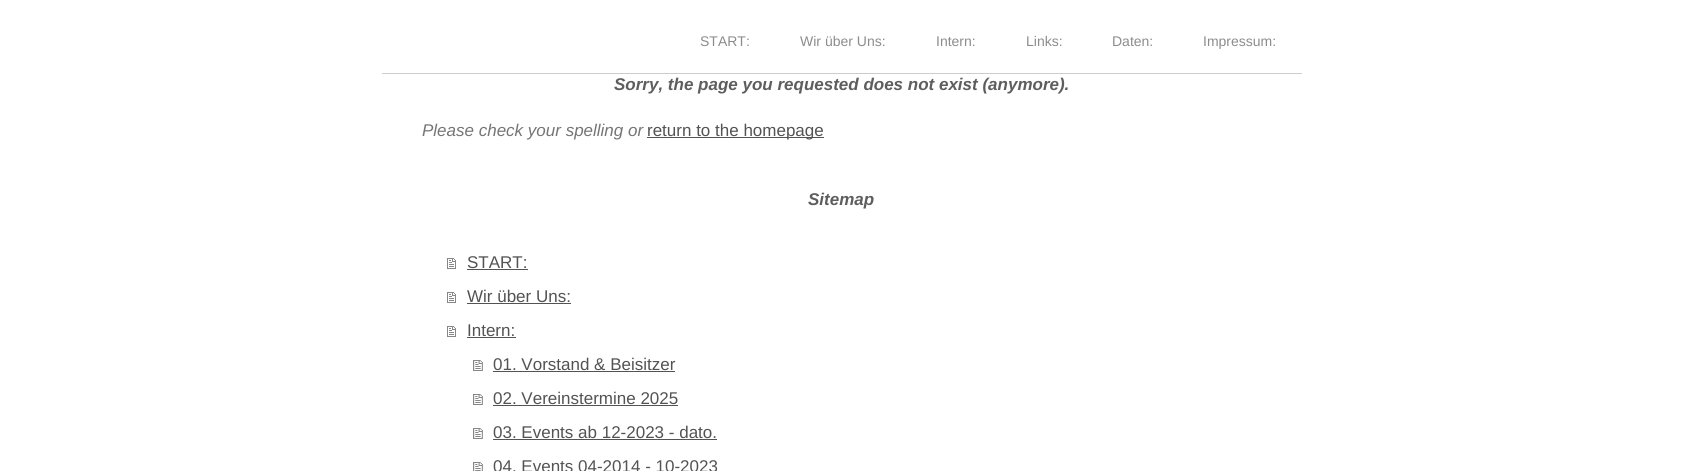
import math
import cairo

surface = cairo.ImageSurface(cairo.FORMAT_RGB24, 1683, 471)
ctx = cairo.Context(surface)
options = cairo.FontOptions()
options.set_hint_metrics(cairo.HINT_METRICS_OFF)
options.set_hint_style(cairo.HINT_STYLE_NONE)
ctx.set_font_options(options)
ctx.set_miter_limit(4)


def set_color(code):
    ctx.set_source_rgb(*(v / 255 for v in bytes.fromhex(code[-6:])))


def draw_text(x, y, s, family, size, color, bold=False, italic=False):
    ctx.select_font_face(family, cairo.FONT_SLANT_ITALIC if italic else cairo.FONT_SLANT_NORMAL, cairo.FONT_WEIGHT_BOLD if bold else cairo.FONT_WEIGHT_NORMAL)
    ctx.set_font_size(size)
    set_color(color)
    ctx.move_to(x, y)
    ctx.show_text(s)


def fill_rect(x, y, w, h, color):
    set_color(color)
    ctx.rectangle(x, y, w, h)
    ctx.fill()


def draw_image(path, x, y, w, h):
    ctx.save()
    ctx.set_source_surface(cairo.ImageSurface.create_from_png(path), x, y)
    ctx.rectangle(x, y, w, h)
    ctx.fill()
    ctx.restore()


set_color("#ffffff")
ctx.paint()
draw_text(700, 46, "START:", "Liberation Sans", 14, "#8c8c8c")
draw_text(800, 46, "Wir über Uns:", "Liberation Sans", 14, "#8c8c8c")
draw_text(936, 46, "Intern:", "Liberation Sans", 14, "#8c8c8c")
draw_text(1026, 46, "Links:", "Liberation Sans", 14, "#8c8c8c")
draw_text(1112, 46, "Daten:", "Liberation Sans", 14, "#8c8c8c")
draw_text(1203, 46, "Impressum:", "Liberation Sans", 14, "#8c8c8c")
fill_rect(382, 73, 920, 1, "#cccccc")
draw_text(614, 90, "Sorry, the page you requested does not exist (anymore).", "Liberation Sans", 17, "#5e5e5e", bold=True, italic=True)
draw_text(422, 136, "Please check your spelling or", "Liberation Sans", 17, "#757575", italic=True)
fill_rect(647, 137, 177, 1, "#535353")
draw_text(647, 136, "return to the homepage", "Liberation Sans", 17, "#535353")
draw_text(808, 205, "Sitemap", "Liberation Sans", 17, "#5e5e5e", bold=True, italic=True)
draw_image("assets/img1.png", 447, 258, 9, 11)
draw_text(467, 268, "START:", "Liberation Sans", 17, "#535353")
fill_rect(467, 269, 61, 1, "#535353")
draw_image("assets/img1.png", 447, 292, 9, 11)
draw_text(467, 302, "Wir über Uns:", "Liberation Sans", 17, "#535353")
fill_rect(467, 303, 104, 1, "#535353")
draw_image("assets/img1.png", 447, 326, 9, 11)
draw_text(467, 336, "Intern:", "Liberation Sans", 17, "#535353")
fill_rect(467, 337, 49, 1, "#535353")
draw_image("assets/img2.png", 473, 360, 10, 11)
draw_text(493, 370, "01. Vorstand & Beisitzer", "Liberation Sans", 17, "#535353")
fill_rect(493, 371, 182, 1, "#535353")
draw_image("assets/img2.png", 473, 394, 10, 11)
draw_text(493, 404, "02. Vereinstermine 2025", "Liberation Sans", 17, "#535353")
fill_rect(493, 405, 185, 1, "#535353")
draw_image("assets/img2.png", 473, 428, 10, 11)
draw_text(493, 438, "03. Events ab 12-2023 - dato.", "Liberation Sans", 17, "#535353")
fill_rect(493, 439, 224, 1, "#535353")
draw_image("assets/img3.png", 473, 462, 10, 9)
draw_text(493, 472, "04. Events 04-2014 - 10-2023", "Liberation Sans", 17, "#535353")
surface.write_to_png("output.png")
